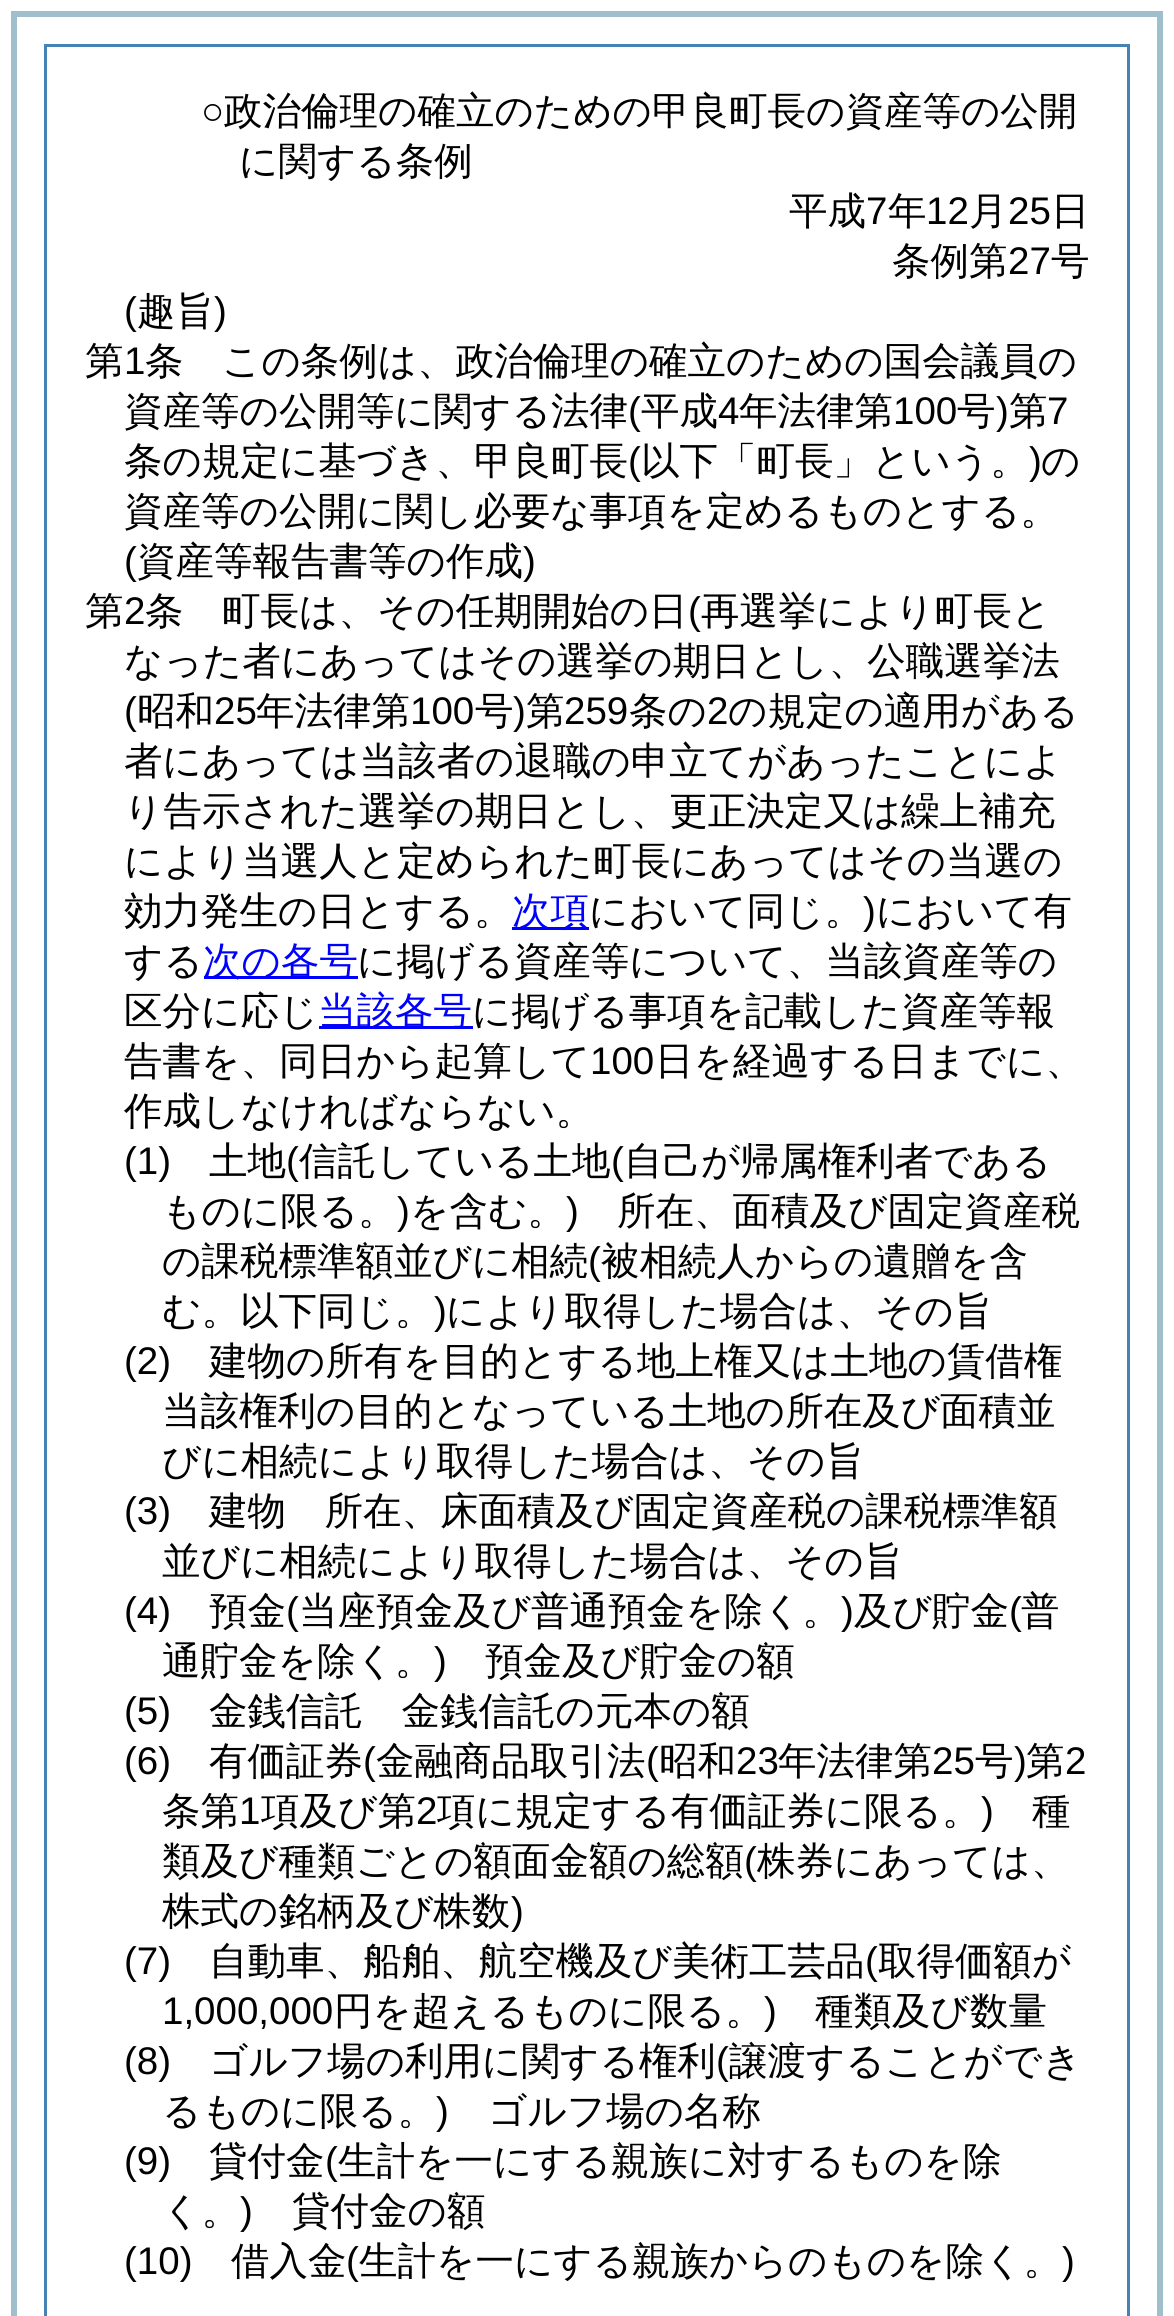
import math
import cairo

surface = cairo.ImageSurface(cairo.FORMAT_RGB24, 1174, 2316)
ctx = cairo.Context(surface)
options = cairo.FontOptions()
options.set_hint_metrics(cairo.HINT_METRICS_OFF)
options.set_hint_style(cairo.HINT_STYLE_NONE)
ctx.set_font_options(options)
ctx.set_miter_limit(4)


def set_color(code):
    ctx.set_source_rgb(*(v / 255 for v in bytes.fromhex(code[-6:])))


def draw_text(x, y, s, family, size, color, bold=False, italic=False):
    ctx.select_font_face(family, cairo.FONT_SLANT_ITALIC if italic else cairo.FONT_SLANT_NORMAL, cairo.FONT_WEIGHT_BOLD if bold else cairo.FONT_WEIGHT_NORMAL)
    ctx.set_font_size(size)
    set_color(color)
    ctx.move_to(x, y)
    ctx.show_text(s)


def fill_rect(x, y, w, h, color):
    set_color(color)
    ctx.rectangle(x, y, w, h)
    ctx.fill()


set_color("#ffffff")
ctx.paint()
ctx.rectangle(14, 14, 1146, 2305)
set_color("#a0bfcc")
ctx.set_line_width(6)
ctx.stroke()
ctx.rectangle(45.5, 45.5, 1083, 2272)
set_color("#4682b4")
ctx.set_line_width(3)
ctx.stroke()
draw_text(201, 124, "○", "Liberation Sans", 38.5, "#000000")
draw_text(224, 124, "政治倫理の確立のための甲良町長の資産等の公開", "WenQuanYi Zen Hei Medium", 38.5, "#000000")
draw_text(239, 174, "に関する条例", "WenQuanYi Zen Hei Medium", 38.5, "#000000")
draw_text(789, 224, "平成", "WenQuanYi Zen Hei Medium", 38.5, "#000000")
draw_text(866, 224, "7", "Liberation Sans", 38.5, "#000000")
draw_text(888, 224, "年", "WenQuanYi Zen Hei Medium", 38.5, "#000000")
draw_text(926, 224, "12", "Liberation Sans", 38.5, "#000000")
draw_text(969, 224, "月", "WenQuanYi Zen Hei Medium", 38.5, "#000000")
draw_text(1008, 224, "25", "Liberation Sans", 38.5, "#000000")
draw_text(1051, 224, "日", "WenQuanYi Zen Hei Medium", 38.5, "#000000")
draw_text(892, 274, "条例第", "WenQuanYi Zen Hei Medium", 38.5, "#000000")
draw_text(1008, 274, "27", "Liberation Sans", 38.5, "#000000")
draw_text(1051, 274, "号", "WenQuanYi Zen Hei Medium", 38.5, "#000000")
draw_text(124, 324, "(", "Liberation Sans", 38.5, "#000000")
draw_text(137, 324, "趣旨", "WenQuanYi Zen Hei Medium", 38.5, "#000000")
draw_text(214, 324, ")", "Liberation Sans", 38.5, "#000000")
draw_text(85, 374, "第", "WenQuanYi Zen Hei Medium", 38.5, "#000000")
draw_text(124, 374, "1", "Liberation Sans", 38.5, "#000000")
draw_text(145, 374, "条", "WenQuanYi Zen Hei Medium", 38.5, "#000000")
draw_text(222, 374, "この条例は、政治倫理の確立のための国会議員の", "WenQuanYi Zen Hei Medium", 38.5, "#000000")
draw_text(124, 424, "資産等の公開等に関する法律", "WenQuanYi Zen Hei Medium", 38.5, "#000000")
draw_text(628, 424, "(", "Liberation Sans", 38.5, "#000000")
draw_text(641, 424, "平成", "WenQuanYi Zen Hei Medium", 38.5, "#000000")
draw_text(718, 424, "4", "Liberation Sans", 38.5, "#000000")
draw_text(739, 424, "年法律第", "WenQuanYi Zen Hei Medium", 38.5, "#000000")
draw_text(893, 424, "100", "Liberation Sans", 38.5, "#000000")
draw_text(957, 424, "号", "WenQuanYi Zen Hei Medium", 38.5, "#000000")
draw_text(996, 424, ")", "Liberation Sans", 38.5, "#000000")
draw_text(1009, 424, "第", "WenQuanYi Zen Hei Medium", 38.5, "#000000")
draw_text(1047, 424, "7", "Liberation Sans", 38.5, "#000000")
draw_text(124, 474, "条の規定に基づき、甲良町長", "WenQuanYi Zen Hei Medium", 38.5, "#000000")
draw_text(628, 474, "(", "Liberation Sans", 38.5, "#000000")
draw_text(641, 474, "以下「町長」という。", "WenQuanYi Zen Hei Medium", 38.5, "#000000")
draw_text(1029, 474, ")", "Liberation Sans", 38.5, "#000000")
draw_text(1041, 474, "の", "WenQuanYi Zen Hei Medium", 38.5, "#000000")
draw_text(124, 524, "資産等の公開に関し必要な事項を定めるものとする。", "WenQuanYi Zen Hei Medium", 38.5, "#000000")
draw_text(124, 574, "(", "Liberation Sans", 38.5, "#000000")
draw_text(137, 574, "資産等報告書等の作成", "WenQuanYi Zen Hei Medium", 38.5, "#000000")
draw_text(523, 574, ")", "Liberation Sans", 38.5, "#000000")
draw_text(85, 624, "第", "WenQuanYi Zen Hei Medium", 38.5, "#000000")
draw_text(124, 624, "2", "Liberation Sans", 38.5, "#000000")
draw_text(145, 624, "条", "WenQuanYi Zen Hei Medium", 38.5, "#000000")
draw_text(222, 624, "町長は、その任期開始の日", "WenQuanYi Zen Hei Medium", 38.5, "#000000")
draw_text(688, 624, "(", "Liberation Sans", 38.5, "#000000")
draw_text(701, 624, "再選挙により町長と", "WenQuanYi Zen Hei Medium", 38.5, "#000000")
draw_text(124, 674, "なった者にあってはその選挙の期日とし、公職選挙法", "WenQuanYi Zen Hei Medium", 38.5, "#000000")
draw_text(124, 724, "(", "Liberation Sans", 38.5, "#000000")
draw_text(137, 724, "昭和", "WenQuanYi Zen Hei Medium", 38.5, "#000000")
draw_text(214, 724, "25", "Liberation Sans", 38.5, "#000000")
draw_text(256, 724, "年法律第", "WenQuanYi Zen Hei Medium", 38.5, "#000000")
draw_text(410, 724, "100", "Liberation Sans", 38.5, "#000000")
draw_text(475, 724, "号", "WenQuanYi Zen Hei Medium", 38.5, "#000000")
draw_text(513, 724, ")", "Liberation Sans", 38.5, "#000000")
draw_text(526, 724, "第", "WenQuanYi Zen Hei Medium", 38.5, "#000000")
draw_text(564, 724, "259", "Liberation Sans", 38.5, "#000000")
draw_text(629, 724, "条の", "WenQuanYi Zen Hei Medium", 38.5, "#000000")
draw_text(707, 724, "2", "Liberation Sans", 38.5, "#000000")
draw_text(728, 724, "の規定の適用がある", "WenQuanYi Zen Hei Medium", 38.5, "#000000")
draw_text(124, 774, "者にあっては当該者の退職の申立てがあったことによ", "WenQuanYi Zen Hei Medium", 38.5, "#000000")
draw_text(124, 824, "り告示された選挙の期日とし、更正決定又は繰上補充", "WenQuanYi Zen Hei Medium", 38.5, "#000000")
draw_text(124, 874, "により当選人と定められた町長にあってはその当選の", "WenQuanYi Zen Hei Medium", 38.5, "#000000")
draw_text(124, 924, "効力発生の日とする。", "WenQuanYi Zen Hei Medium", 38.5, "#000000")
fill_rect(512, 927, 77, 3, "#0000ff")
draw_text(512, 924, "次項", "WenQuanYi Zen Hei Medium", 38.5, "#0000ff")
draw_text(589, 924, "において同じ。", "WenQuanYi Zen Hei Medium", 38.5, "#000000")
draw_text(863, 924, ")", "Liberation Sans", 38.5, "#000000")
draw_text(876, 924, "において有", "WenQuanYi Zen Hei Medium", 38.5, "#000000")
draw_text(124, 974, "する", "WenQuanYi Zen Hei Medium", 38.5, "#000000")
fill_rect(204, 976, 154, 3, "#0000ff")
draw_text(203, 974, "次の各号", "WenQuanYi Zen Hei Medium", 38.5, "#0000ff")
draw_text(357, 974, "に掲げる資産等について、当該資産等の", "WenQuanYi Zen Hei Medium", 38.5, "#000000")
draw_text(124, 1024, "区分に応じ", "WenQuanYi Zen Hei Medium", 38.5, "#000000")
fill_rect(319, 1026, 154, 3, "#0000ff")
draw_text(318, 1024, "当該各号", "WenQuanYi Zen Hei Medium", 38.5, "#0000ff")
draw_text(472, 1024, "に掲げる事項を記載した資産等報", "WenQuanYi Zen Hei Medium", 38.5, "#000000")
draw_text(124, 1074, "告書を、同日から起算して", "WenQuanYi Zen Hei Medium", 38.5, "#000000")
draw_text(590, 1074, "100", "Liberation Sans", 38.5, "#000000")
draw_text(655, 1074, "日を経過する日までに、", "WenQuanYi Zen Hei Medium", 38.5, "#000000")
draw_text(124, 1124, "作成しなければならない。", "WenQuanYi Zen Hei Medium", 38.5, "#000000")
draw_text(124, 1174, "(1)", "Liberation Sans", 38.5, "#000000")
draw_text(209, 1174, "土地", "WenQuanYi Zen Hei Medium", 38.5, "#000000")
draw_text(286, 1174, "(", "Liberation Sans", 38.5, "#000000")
draw_text(299, 1174, "信託している土地", "WenQuanYi Zen Hei Medium", 38.5, "#000000")
draw_text(611, 1174, "(", "Liberation Sans", 38.5, "#000000")
draw_text(624, 1174, "自己が帰属権利者である", "WenQuanYi Zen Hei Medium", 38.5, "#000000")
draw_text(162, 1224, "ものに限る。", "WenQuanYi Zen Hei Medium", 38.5, "#000000")
draw_text(397, 1224, ")", "Liberation Sans", 38.5, "#000000")
draw_text(410, 1224, "を含む。", "WenQuanYi Zen Hei Medium", 38.5, "#000000")
draw_text(566, 1224, ")", "Liberation Sans", 38.5, "#000000")
draw_text(617, 1224, "所在、面積及び固定資産税", "WenQuanYi Zen Hei Medium", 38.5, "#000000")
draw_text(162, 1274, "の課税標準額並びに相続", "WenQuanYi Zen Hei Medium", 38.5, "#000000")
draw_text(588, 1274, "(", "Liberation Sans", 38.5, "#000000")
draw_text(601, 1274, "被相続人からの遺贈を含", "WenQuanYi Zen Hei Medium", 38.5, "#000000")
draw_text(162, 1324, "む。以下同じ。", "WenQuanYi Zen Hei Medium", 38.5, "#000000")
draw_text(434, 1324, ")", "Liberation Sans", 38.5, "#000000")
draw_text(446, 1324, "により取得した場合は、その旨", "WenQuanYi Zen Hei Medium", 38.5, "#000000")
draw_text(124, 1374, "(2)", "Liberation Sans", 38.5, "#000000")
draw_text(209, 1374, "建物の所有を目的とする地上権又は土地の賃借権", "WenQuanYi Zen Hei Medium", 38.5, "#000000")
draw_text(162, 1424, "当該権利の目的となっている土地の所在及び面積並", "WenQuanYi Zen Hei Medium", 38.5, "#000000")
draw_text(162, 1474, "びに相続により取得した場合は、その旨", "WenQuanYi Zen Hei Medium", 38.5, "#000000")
draw_text(124, 1524, "(3)", "Liberation Sans", 38.5, "#000000")
draw_text(209, 1524, "建物　所在、床面積及び固定資産税の課税標準額", "WenQuanYi Zen Hei Medium", 38.5, "#000000")
draw_text(162, 1574, "並びに相続により取得した場合は、その旨", "WenQuanYi Zen Hei Medium", 38.5, "#000000")
draw_text(124, 1624, "(4)", "Liberation Sans", 38.5, "#000000")
draw_text(209, 1624, "預金", "WenQuanYi Zen Hei Medium", 38.5, "#000000")
draw_text(286, 1624, "(", "Liberation Sans", 38.5, "#000000")
draw_text(299, 1624, "当座預金及び普通預金を除く。", "WenQuanYi Zen Hei Medium", 38.5, "#000000")
draw_text(841, 1624, ")", "Liberation Sans", 38.5, "#000000")
draw_text(854, 1624, "及び貯金", "WenQuanYi Zen Hei Medium", 38.5, "#000000")
draw_text(1009, 1624, "(", "Liberation Sans", 38.5, "#000000")
draw_text(1021, 1624, "普", "WenQuanYi Zen Hei Medium", 38.5, "#000000")
draw_text(162, 1674, "通貯金を除く。", "WenQuanYi Zen Hei Medium", 38.5, "#000000")
draw_text(434, 1674, ")", "Liberation Sans", 38.5, "#000000")
draw_text(485, 1674, "預金及び貯金の額", "WenQuanYi Zen Hei Medium", 38.5, "#000000")
draw_text(124, 1724, "(5)", "Liberation Sans", 38.5, "#000000")
draw_text(209, 1724, "金銭信託　金銭信託の元本の額", "WenQuanYi Zen Hei Medium", 38.5, "#000000")
draw_text(124, 1774, "(6)", "Liberation Sans", 38.5, "#000000")
draw_text(209, 1774, "有価証券", "WenQuanYi Zen Hei Medium", 38.5, "#000000")
draw_text(363, 1774, "(", "Liberation Sans", 38.5, "#000000")
draw_text(376, 1774, "金融商品取引法", "WenQuanYi Zen Hei Medium", 38.5, "#000000")
draw_text(646, 1774, "(", "Liberation Sans", 38.5, "#000000")
draw_text(659, 1774, "昭和", "WenQuanYi Zen Hei Medium", 38.5, "#000000")
draw_text(736, 1774, "23", "Liberation Sans", 38.5, "#000000")
draw_text(778, 1774, "年法律第", "WenQuanYi Zen Hei Medium", 38.5, "#000000")
draw_text(932, 1774, "25", "Liberation Sans", 38.5, "#000000")
draw_text(975, 1774, "号", "WenQuanYi Zen Hei Medium", 38.5, "#000000")
draw_text(1014, 1774, ")", "Liberation Sans", 38.5, "#000000")
draw_text(1026, 1774, "第", "WenQuanYi Zen Hei Medium", 38.5, "#000000")
draw_text(1065, 1774, "2", "Liberation Sans", 38.5, "#000000")
draw_text(162, 1824, "条第", "WenQuanYi Zen Hei Medium", 38.5, "#000000")
draw_text(239, 1824, "1", "Liberation Sans", 38.5, "#000000")
draw_text(261, 1824, "項及び第", "WenQuanYi Zen Hei Medium", 38.5, "#000000")
draw_text(416, 1824, "2", "Liberation Sans", 38.5, "#000000")
draw_text(437, 1824, "項に規定する有価証券に限る。", "WenQuanYi Zen Hei Medium", 38.5, "#000000")
draw_text(981, 1824, ")", "Liberation Sans", 38.5, "#000000")
draw_text(1032, 1824, "種", "WenQuanYi Zen Hei Medium", 38.5, "#000000")
draw_text(162, 1874, "類及び種類ごとの額面金額の総額", "WenQuanYi Zen Hei Medium", 38.5, "#000000")
draw_text(744, 1874, "(", "Liberation Sans", 38.5, "#000000")
draw_text(757, 1874, "株券にあっては、", "WenQuanYi Zen Hei Medium", 38.5, "#000000")
draw_text(162, 1924, "株式の銘柄及び株数", "WenQuanYi Zen Hei Medium", 38.5, "#000000")
draw_text(511, 1924, ")", "Liberation Sans", 38.5, "#000000")
draw_text(124, 1974, "(7)", "Liberation Sans", 38.5, "#000000")
draw_text(209, 1974, "自動車、船舶、航空機及び美術工芸品", "WenQuanYi Zen Hei Medium", 38.5, "#000000")
draw_text(865, 1974, "(", "Liberation Sans", 38.5, "#000000")
draw_text(878, 1974, "取得価額が", "WenQuanYi Zen Hei Medium", 38.5, "#000000")
draw_text(162, 2024, "1,000,000", "Liberation Sans", 38.5, "#000000")
draw_text(334, 2024, "円を超えるものに限る。", "WenQuanYi Zen Hei Medium", 38.5, "#000000")
draw_text(764, 2024, ")", "Liberation Sans", 38.5, "#000000")
draw_text(815, 2024, "種類及び数量", "WenQuanYi Zen Hei Medium", 38.5, "#000000")
draw_text(124, 2074, "(8)", "Liberation Sans", 38.5, "#000000")
draw_text(209, 2074, "ゴルフ場の利用に関する権利", "WenQuanYi Zen Hei Medium", 38.5, "#000000")
draw_text(716, 2074, "(", "Liberation Sans", 38.5, "#000000")
draw_text(729, 2074, "譲渡することができ", "WenQuanYi Zen Hei Medium", 38.5, "#000000")
draw_text(162, 2124, "るものに限る。", "WenQuanYi Zen Hei Medium", 38.5, "#000000")
draw_text(436, 2124, ")", "Liberation Sans", 38.5, "#000000")
draw_text(488, 2124, "ゴルフ場の名称", "WenQuanYi Zen Hei Medium", 38.5, "#000000")
draw_text(124, 2174, "(9)", "Liberation Sans", 38.5, "#000000")
draw_text(209, 2174, "貸付金", "WenQuanYi Zen Hei Medium", 38.5, "#000000")
draw_text(325, 2174, "(", "Liberation Sans", 38.5, "#000000")
draw_text(338, 2174, "生計を一にする親族に対するものを除", "WenQuanYi Zen Hei Medium", 38.5, "#000000")
draw_text(162, 2224, "く。", "WenQuanYi Zen Hei Medium", 38.5, "#000000")
draw_text(240, 2224, ")", "Liberation Sans", 38.5, "#000000")
draw_text(292, 2224, "貸付金の額", "WenQuanYi Zen Hei Medium", 38.5, "#000000")
draw_text(124, 2274, "(10)", "Liberation Sans", 38.5, "#000000")
draw_text(231, 2274, "借入金", "WenQuanYi Zen Hei Medium", 38.5, "#000000")
draw_text(346, 2274, "(", "Liberation Sans", 38.5, "#000000")
draw_text(359, 2274, "生計を一にする親族からのものを除く。", "WenQuanYi Zen Hei Medium", 38.5, "#000000")
draw_text(1062, 2274, ")", "Liberation Sans", 38.5, "#000000")
surface.write_to_png("output.png")
